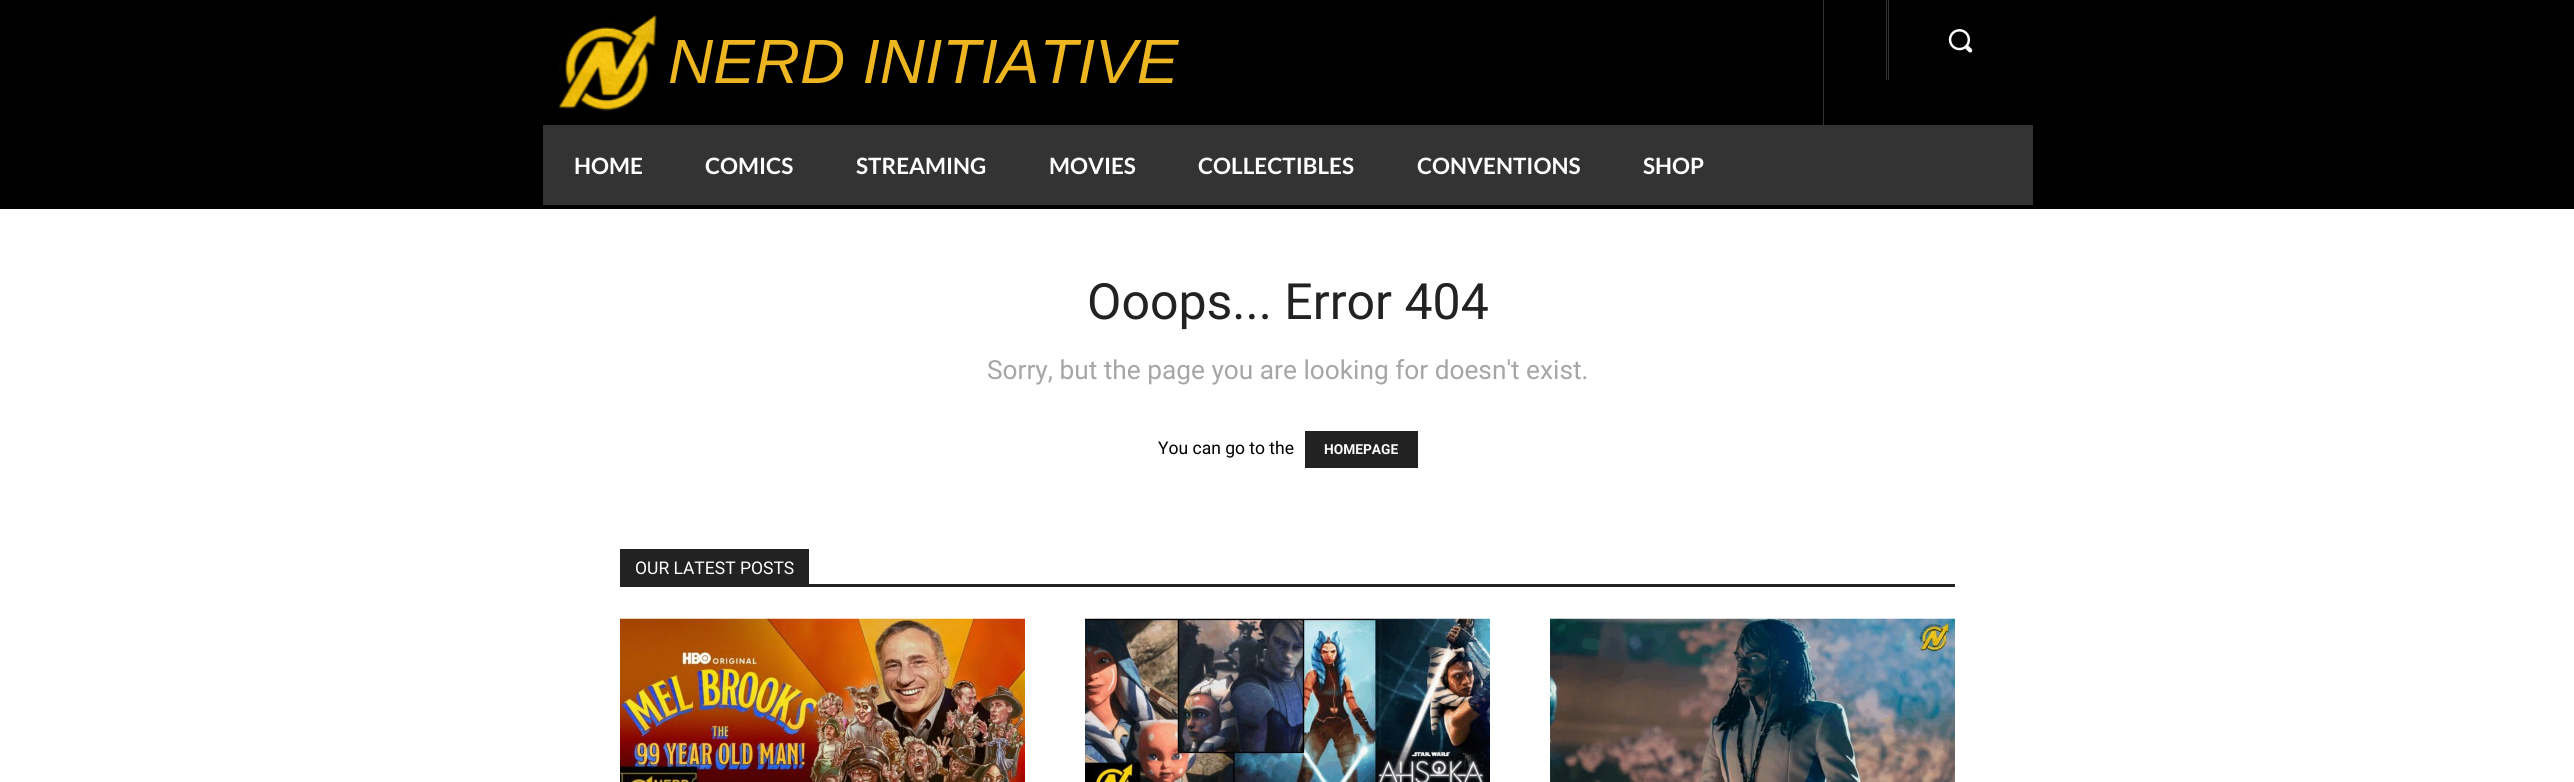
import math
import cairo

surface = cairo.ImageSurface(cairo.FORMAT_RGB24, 2574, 782)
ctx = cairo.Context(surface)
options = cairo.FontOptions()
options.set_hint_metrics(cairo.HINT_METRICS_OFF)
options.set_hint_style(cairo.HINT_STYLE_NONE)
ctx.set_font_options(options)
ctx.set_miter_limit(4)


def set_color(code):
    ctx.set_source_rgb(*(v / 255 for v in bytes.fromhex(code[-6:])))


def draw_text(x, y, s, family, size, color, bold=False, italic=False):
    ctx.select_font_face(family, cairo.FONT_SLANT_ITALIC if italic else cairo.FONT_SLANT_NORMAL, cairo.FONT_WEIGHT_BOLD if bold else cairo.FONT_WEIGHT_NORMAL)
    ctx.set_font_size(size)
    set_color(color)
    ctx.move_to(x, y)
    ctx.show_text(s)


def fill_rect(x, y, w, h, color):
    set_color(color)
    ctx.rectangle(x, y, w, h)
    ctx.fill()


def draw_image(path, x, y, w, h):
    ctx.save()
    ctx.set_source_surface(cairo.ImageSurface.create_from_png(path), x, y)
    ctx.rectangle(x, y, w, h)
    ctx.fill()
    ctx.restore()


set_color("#ffffff")
ctx.paint()
fill_rect(0, 0, 2574, 209, "#000000")
draw_image("assets/img1.png", 558, 15, 99, 97)
draw_text(668, 83, "NERD INITIATIVE", "Liberation Sans", 62.5, "#edb621", italic=True)
fill_rect(1823, 0, 1, 125, "#333333")
fill_rect(1886, 0, 1, 80, "#333333")
fill_rect(1888, 0, 1, 80, "#333333")
draw_image("assets/img2.png", 1948, 29, 25, 24)
fill_rect(543, 125, 1490, 80, "#333333")
draw_text(574, 174, "HOME", "Lato", 22.5, "#ffffff", bold=True)
draw_text(705, 174, "COMICS", "Lato", 22.5, "#ffffff", bold=True)
draw_text(856, 174, "STREAMING", "Lato", 22.5, "#ffffff", bold=True)
draw_text(1049, 174, "MOVIES", "Lato", 22.5, "#ffffff", bold=True)
draw_text(1198, 174, "COLLECTIBLES", "Lato", 22.5, "#ffffff", bold=True)
draw_text(1417, 174, "CONVENTIONS", "Lato", 22.5, "#ffffff", bold=True)
draw_text(1643, 174, "SHOP", "Lato", 22.5, "#ffffff", bold=True)
draw_text(1087, 319, "Ooops... Error 404", "Roboto", 50, "#222222")
draw_text(987, 379, "Sorry, but the page you are looking for doesn't exist.", "Roboto", 26.25, "#a6a6a6")
draw_text(1158, 454, "You can go to the", "Roboto", 17.5, "#000000")
fill_rect(1305, 431, 113, 37, "#222222")
draw_text(1324, 454, "HOMEPAGE", "Roboto", 13.75, "#ffffff", bold=True)
fill_rect(620, 584, 1335, 3, "#222222")
fill_rect(620, 549, 189, 35, "#222222")
draw_text(635, 574, "OUR LATEST POSTS", "Roboto", 17.5, "#ffffff")
draw_image("assets/img3.png", 620, 618, 405, 164)
draw_image("assets/img4.png", 1085, 618, 405, 164)
draw_image("assets/img5.png", 1550, 618, 405, 164)
surface.write_to_png("output.png")
